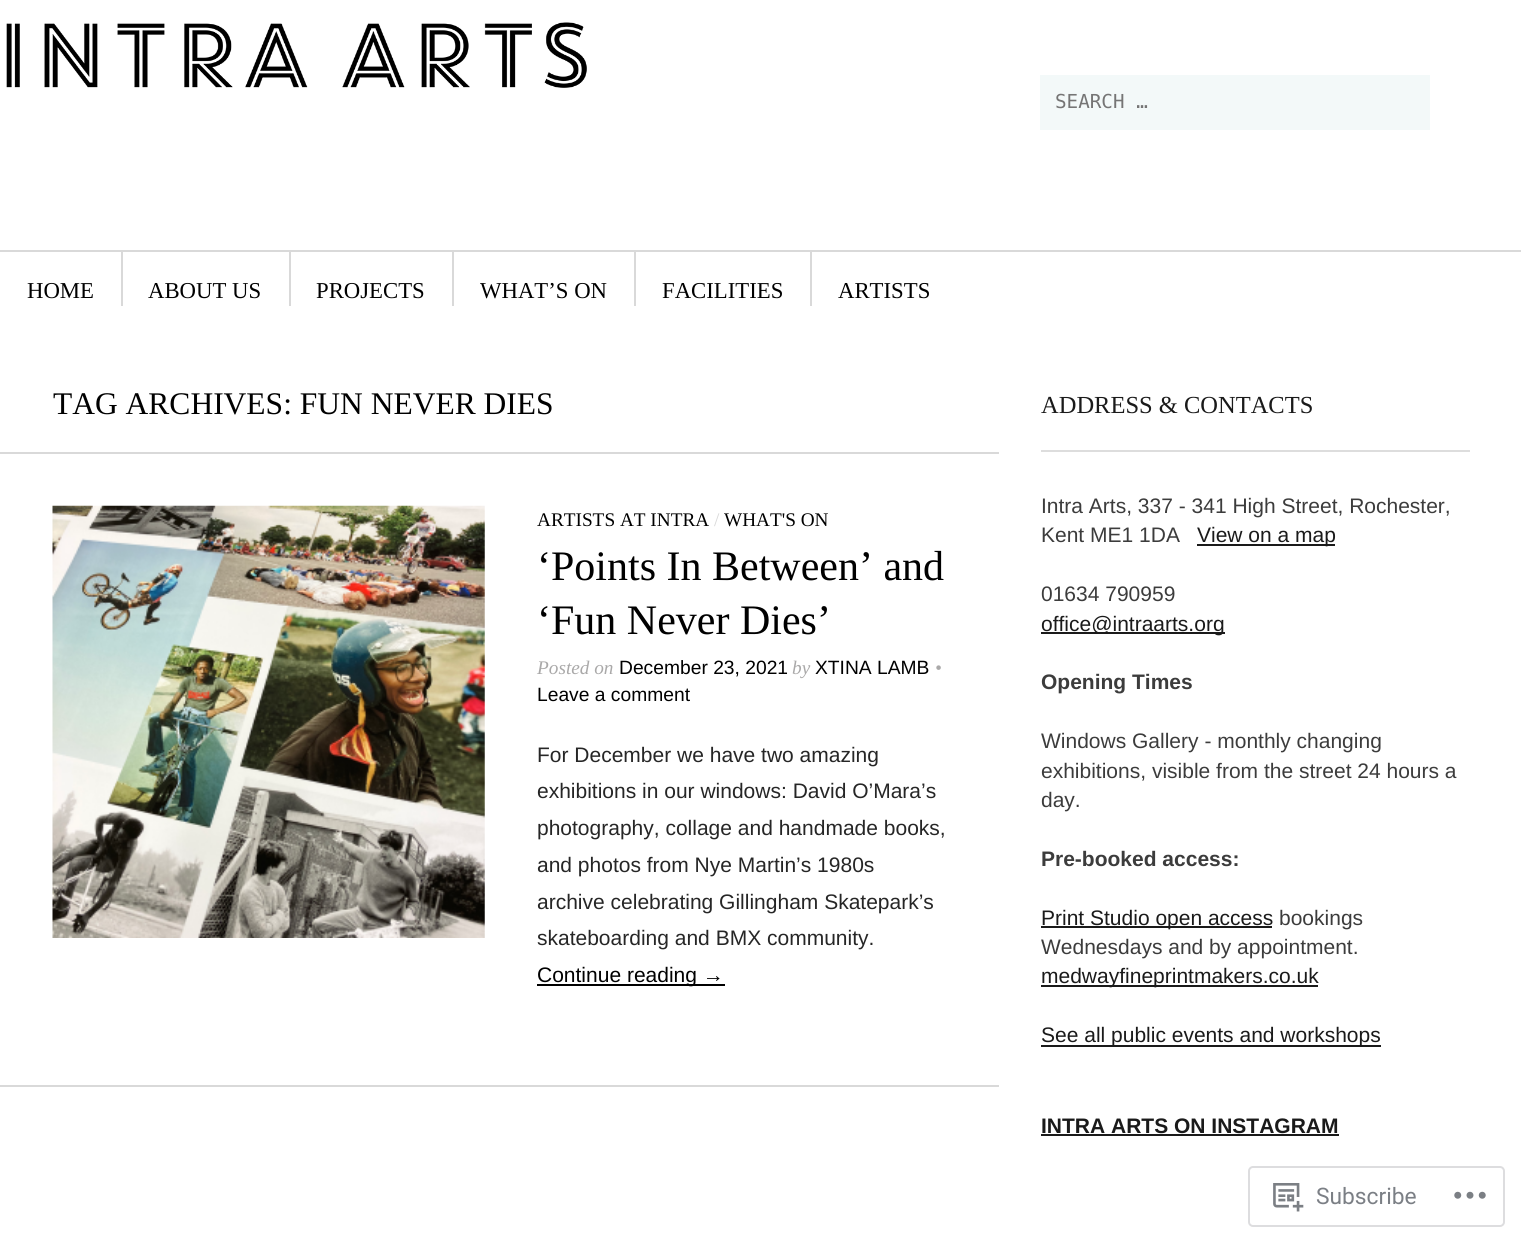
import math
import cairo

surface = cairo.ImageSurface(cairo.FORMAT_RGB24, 1521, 1244)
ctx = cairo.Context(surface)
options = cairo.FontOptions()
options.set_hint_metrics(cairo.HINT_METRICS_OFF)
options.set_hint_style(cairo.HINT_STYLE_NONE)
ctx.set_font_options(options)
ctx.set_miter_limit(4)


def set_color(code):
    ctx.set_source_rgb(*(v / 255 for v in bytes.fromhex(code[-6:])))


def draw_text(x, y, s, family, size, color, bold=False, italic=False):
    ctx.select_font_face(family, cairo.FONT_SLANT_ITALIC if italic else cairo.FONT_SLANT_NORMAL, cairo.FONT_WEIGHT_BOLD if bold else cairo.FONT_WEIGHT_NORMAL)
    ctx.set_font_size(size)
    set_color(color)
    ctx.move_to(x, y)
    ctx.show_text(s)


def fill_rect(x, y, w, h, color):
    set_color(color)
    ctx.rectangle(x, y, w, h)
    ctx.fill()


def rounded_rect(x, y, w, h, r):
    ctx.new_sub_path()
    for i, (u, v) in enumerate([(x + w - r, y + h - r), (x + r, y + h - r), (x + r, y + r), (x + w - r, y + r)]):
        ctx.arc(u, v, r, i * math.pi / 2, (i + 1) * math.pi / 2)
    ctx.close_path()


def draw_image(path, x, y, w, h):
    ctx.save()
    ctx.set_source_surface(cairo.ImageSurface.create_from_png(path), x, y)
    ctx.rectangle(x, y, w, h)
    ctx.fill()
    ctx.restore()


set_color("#ffffff")
ctx.paint()
draw_image("assets/img1.png", 6, 22, 581, 66)
fill_rect(1040, 75, 390, 55, "#f3f9f9")
draw_text(1055, 108, "SEARCH …", "DejaVu Sans Mono", 19.25, "#757575")
fill_rect(0, 250, 1521, 2, "#d9d9d9")
draw_text(27, 298, "HOME", "Liberation Serif", 22.75, "#000000")
fill_rect(121, 252, 2, 54, "#d9d9d9")
draw_text(148, 298, "ABOUT US", "Liberation Serif", 22.75, "#000000")
fill_rect(289, 252, 2, 54, "#d9d9d9")
draw_text(316, 298, "PROJECTS", "Liberation Serif", 22.75, "#000000")
fill_rect(452, 252, 2, 54, "#d9d9d9")
draw_text(480, 298, "WHAT’S ON", "Liberation Serif", 22.75, "#000000")
fill_rect(634, 252, 2, 54, "#d9d9d9")
draw_text(662, 298, "FACILITIES", "Liberation Serif", 22.75, "#000000")
fill_rect(810, 252, 2, 54, "#d9d9d9")
draw_text(838, 298, "ARTISTS", "Liberation Serif", 22.75, "#000000")
fill_rect(0, 452, 999, 2, "#d9d9d9")
draw_text(53, 414, "TAG ARCHIVES: FUN NEVER DIES", "Liberation Serif", 31.5, "#000000")
fill_rect(0, 1085, 999, 2, "#d9d9d9")
draw_image("assets/img2.png", 52, 505, 433, 433)
draw_text(537, 526, "ARTISTS AT INTRA", "Liberation Serif", 19.25, "#000000")
draw_text(714, 526, "/", "Liberation Serif", 19.25, "#d9d9d9")
draw_text(724, 526, "WHAT'S ON", "Liberation Serif", 19.25, "#000000")
draw_text(537, 580, "‘Points In Between’ and", "Liberation Serif", 42, "#000000")
draw_text(537, 634, "‘Fun Never Dies’", "Liberation Serif", 42, "#000000")
draw_text(537, 674, "Posted on", "Liberation Serif", 19.25, "#aaa9a9", italic=True)
draw_text(619, 674, "December 23, 2021", "Liberation Sans", 19.25, "#000000")
draw_text(792, 674, "by", "Liberation Serif", 19.25, "#aaa9a9", italic=True)
draw_text(815, 674, "XTINA LAMB", "Liberation Sans", 19.25, "#000000")
draw_text(935, 674, "•", "Liberation Serif", 19.25, "#aaa9a9", italic=True)
draw_text(537, 701, "Leave a comment", "Liberation Sans", 19.25, "#000000")
draw_text(537, 762, "For December we have two amazing", "Liberation Sans", 21, "#262626")
draw_text(537, 798, "exhibitions in our windows: David O’Mara’s", "Liberation Sans", 21, "#262626")
draw_text(537, 835, "photography, collage and handmade books,", "Liberation Sans", 21, "#262626")
draw_text(537, 872, "and photos from Nye Martin’s 1980s", "Liberation Sans", 21, "#262626")
draw_text(537, 909, "archive celebrating Gillingham Skatepark’s", "Liberation Sans", 21, "#262626")
draw_text(537, 945, "skateboarding and BMX community.", "Liberation Sans", 21, "#262626")
fill_rect(537, 984, 188, 2, "#000000")
draw_text(537, 982, "Continue reading →", "Liberation Sans", 21, "#000000")
fill_rect(1041, 450, 429, 2, "#dddddd")
draw_text(1041, 413, "ADDRESS & CONTACTS", "Liberation Serif", 24.5, "#1a1a1a")
draw_text(1041, 513, "Intra Arts, 337 - 341 High Street, Rochester,", "Liberation Sans", 21, "#3c3c3c")
draw_text(1041, 542, "Kent ME1 1DA", "Liberation Sans", 21, "#3c3c3c")
fill_rect(1197, 544, 138, 2, "#1a1a1a")
draw_text(1197, 542, "View on a map", "Liberation Sans", 21, "#1a1a1a")
draw_text(1041, 601, "01634 790959", "Liberation Sans", 21, "#3c3c3c")
fill_rect(1041, 632, 184, 2, "#1a1a1a")
draw_text(1041, 631, "office@intraarts.org", "Liberation Sans", 21, "#1a1a1a")
draw_text(1041, 689, "Opening Times", "Liberation Sans", 21, "#3c3c3c", bold=True)
draw_text(1041, 748, "Windows Gallery - monthly changing", "Liberation Sans", 21, "#3c3c3c")
draw_text(1041, 778, "exhibitions, visible from the street 24 hours a", "Liberation Sans", 21, "#3c3c3c")
draw_text(1041, 807, "day.", "Liberation Sans", 21, "#3c3c3c")
draw_text(1041, 866, "Pre-booked access:", "Liberation Sans", 21, "#3c3c3c", bold=True)
fill_rect(1041, 926, 231, 2, "#1a1a1a")
draw_text(1041, 925, "Print Studio open access", "Liberation Sans", 21, "#1a1a1a")
draw_text(1279, 925, "bookings", "Liberation Sans", 21, "#3c3c3c")
draw_text(1041, 954, "Wednesdays and by appointment.", "Liberation Sans", 21, "#3c3c3c")
fill_rect(1041, 985, 277, 2, "#1a1a1a")
draw_text(1041, 983, "medwayfineprintmakers.co.uk", "Liberation Sans", 21, "#1a1a1a")
fill_rect(1041, 1045, 340, 2, "#1a1a1a")
draw_text(1041, 1042, "See all public events and workshops", "Liberation Sans", 21, "#1a1a1a")
draw_text(1041, 1133, "INTRA ARTS ON INSTAGRAM", "Liberation Sans", 21, "#1a1a1a", bold=True)
fill_rect(1041, 1134, 298, 2, "#1a1a1a")
rounded_rect(1249, 1167, 255, 59, 4)
set_color("#dddddf")
ctx.stroke()
draw_image("assets/img3.png", 1273, 1183, 31, 29)
draw_text(1316, 1204, "Subscribe", "Roboto", 22.75, "#7b7f85")
draw_image("assets/img4.png", 1454, 1191, 32, 8)
surface.write_to_png("output.png")
